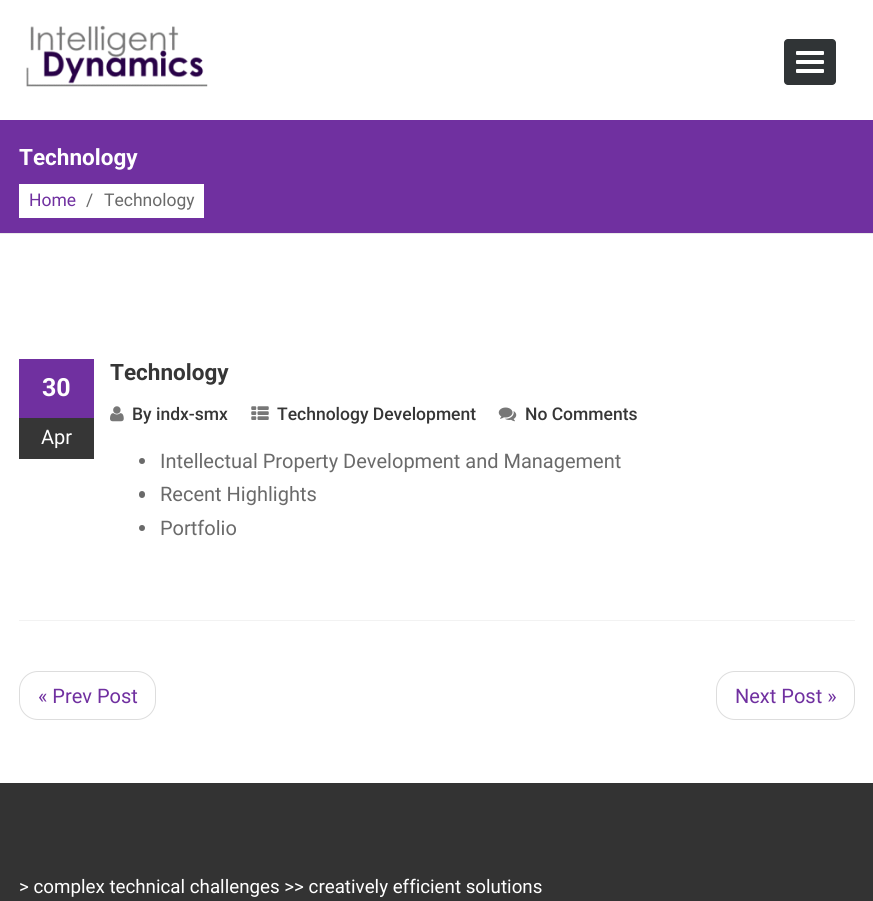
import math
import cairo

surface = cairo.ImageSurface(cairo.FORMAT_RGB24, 873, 901)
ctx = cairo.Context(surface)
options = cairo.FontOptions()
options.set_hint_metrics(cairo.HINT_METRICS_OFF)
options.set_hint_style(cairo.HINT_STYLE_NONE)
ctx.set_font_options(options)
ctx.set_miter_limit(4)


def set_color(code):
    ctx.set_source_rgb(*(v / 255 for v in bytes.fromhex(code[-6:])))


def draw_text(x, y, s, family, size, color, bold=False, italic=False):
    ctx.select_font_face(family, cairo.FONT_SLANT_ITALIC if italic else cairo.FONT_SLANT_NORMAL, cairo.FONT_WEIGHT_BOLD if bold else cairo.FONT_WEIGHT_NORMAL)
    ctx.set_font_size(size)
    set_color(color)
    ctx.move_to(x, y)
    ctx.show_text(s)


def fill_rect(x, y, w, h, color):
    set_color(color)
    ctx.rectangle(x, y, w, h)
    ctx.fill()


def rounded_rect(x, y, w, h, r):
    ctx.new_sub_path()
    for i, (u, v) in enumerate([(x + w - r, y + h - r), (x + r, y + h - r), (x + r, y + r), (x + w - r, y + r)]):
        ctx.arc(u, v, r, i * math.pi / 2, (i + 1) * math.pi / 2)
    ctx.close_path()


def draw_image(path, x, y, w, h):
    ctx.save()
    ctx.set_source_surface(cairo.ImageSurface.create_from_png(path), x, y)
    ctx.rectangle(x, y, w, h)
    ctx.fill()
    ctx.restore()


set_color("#ffffff")
ctx.paint()
draw_image("assets/img1.png", 26, 25, 182, 62)
set_color("#303436")
rounded_rect(784, 39, 52, 46, 4)
ctx.fill()
set_color("#ffffff")
rounded_rect(796, 51, 28, 4, 1)
ctx.fill()
rounded_rect(796, 60, 28, 4, 1)
ctx.fill()
rounded_rect(796, 69, 28, 4, 1)
ctx.fill()
fill_rect(0, 120, 873, 113, "#7030a0")
fill_rect(0, 233, 873, 1, "#eaeaea")
draw_text(19, 165, "Technology", "Roboto", 22.5, "#ffffff", bold=True)
fill_rect(19, 184, 185, 34, "#ffffff")
draw_text(29, 206, "Home", "Roboto", 17.5, "#7030a0")
draw_text(86, 206, "/", "Roboto", 17.5, "#6a6a6a")
draw_text(104, 206, "Technology", "Roboto", 17.5, "#6a6a6a")
fill_rect(19, 620, 836, 1, "#f2f2f2")
fill_rect(19, 359, 75, 59, "#7030a0")
draw_text(42, 396, "30", "Roboto", 25, "#ffffff", bold=True)
fill_rect(19, 418, 75, 41, "#363636")
draw_text(41, 444, "Apr", "Roboto", 20, "#ffffff")
draw_text(110, 380, "Technology", "Roboto", 22.5, "#363636", bold=True)
draw_image("assets/img2.png", 110, 406, 14, 16)
draw_text(132, 420, "By indx-smx", "Roboto Medium", 17.5, "#363636")
draw_image("assets/img3.png", 251, 406, 18, 14)
draw_text(277, 420, "Technology Development", "Roboto Medium", 17.5, "#363636")
draw_image("assets/img4.png", 498, 407, 19, 15)
draw_text(525, 420, "No Comments", "Roboto Medium", 17.5, "#363636")
set_color("#6a6a6a")
ctx.new_path()
ctx.arc(142, 461, 3, 0, 2 * math.pi)
ctx.fill()
draw_text(160, 468, "Intellectual Property Development and Management", "Roboto", 20, "#6a6a6a")
rounded_rect(139, 491, 6, 7, 3)
ctx.fill()
draw_text(160, 501, "Recent Highlights", "Roboto", 20, "#6a6a6a")
ctx.new_path()
ctx.arc(142, 528, 3, 0, 2 * math.pi)
ctx.fill()
draw_text(160, 535, "Portfolio", "Roboto", 20, "#6a6a6a")
rounded_rect(19.5, 671.5, 136, 48, 18.5)
set_color("#dddddd")
ctx.set_line_width(1)
ctx.stroke()
draw_text(38, 703, "« Prev Post", "Roboto", 20, "#7030a0")
rounded_rect(716.5, 671.5, 138, 48, 18.5)
set_color("#dddddd")
ctx.stroke()
draw_text(735, 703, "Next Post »", "Roboto", 20, "#7030a0")
fill_rect(0, 783, 873, 118, "#333333")
draw_text(19, 893, "> complex technical challenges >> creatively efficient solutions", "Roboto", 18.75, "#ffffff")
surface.write_to_png("output.png")
